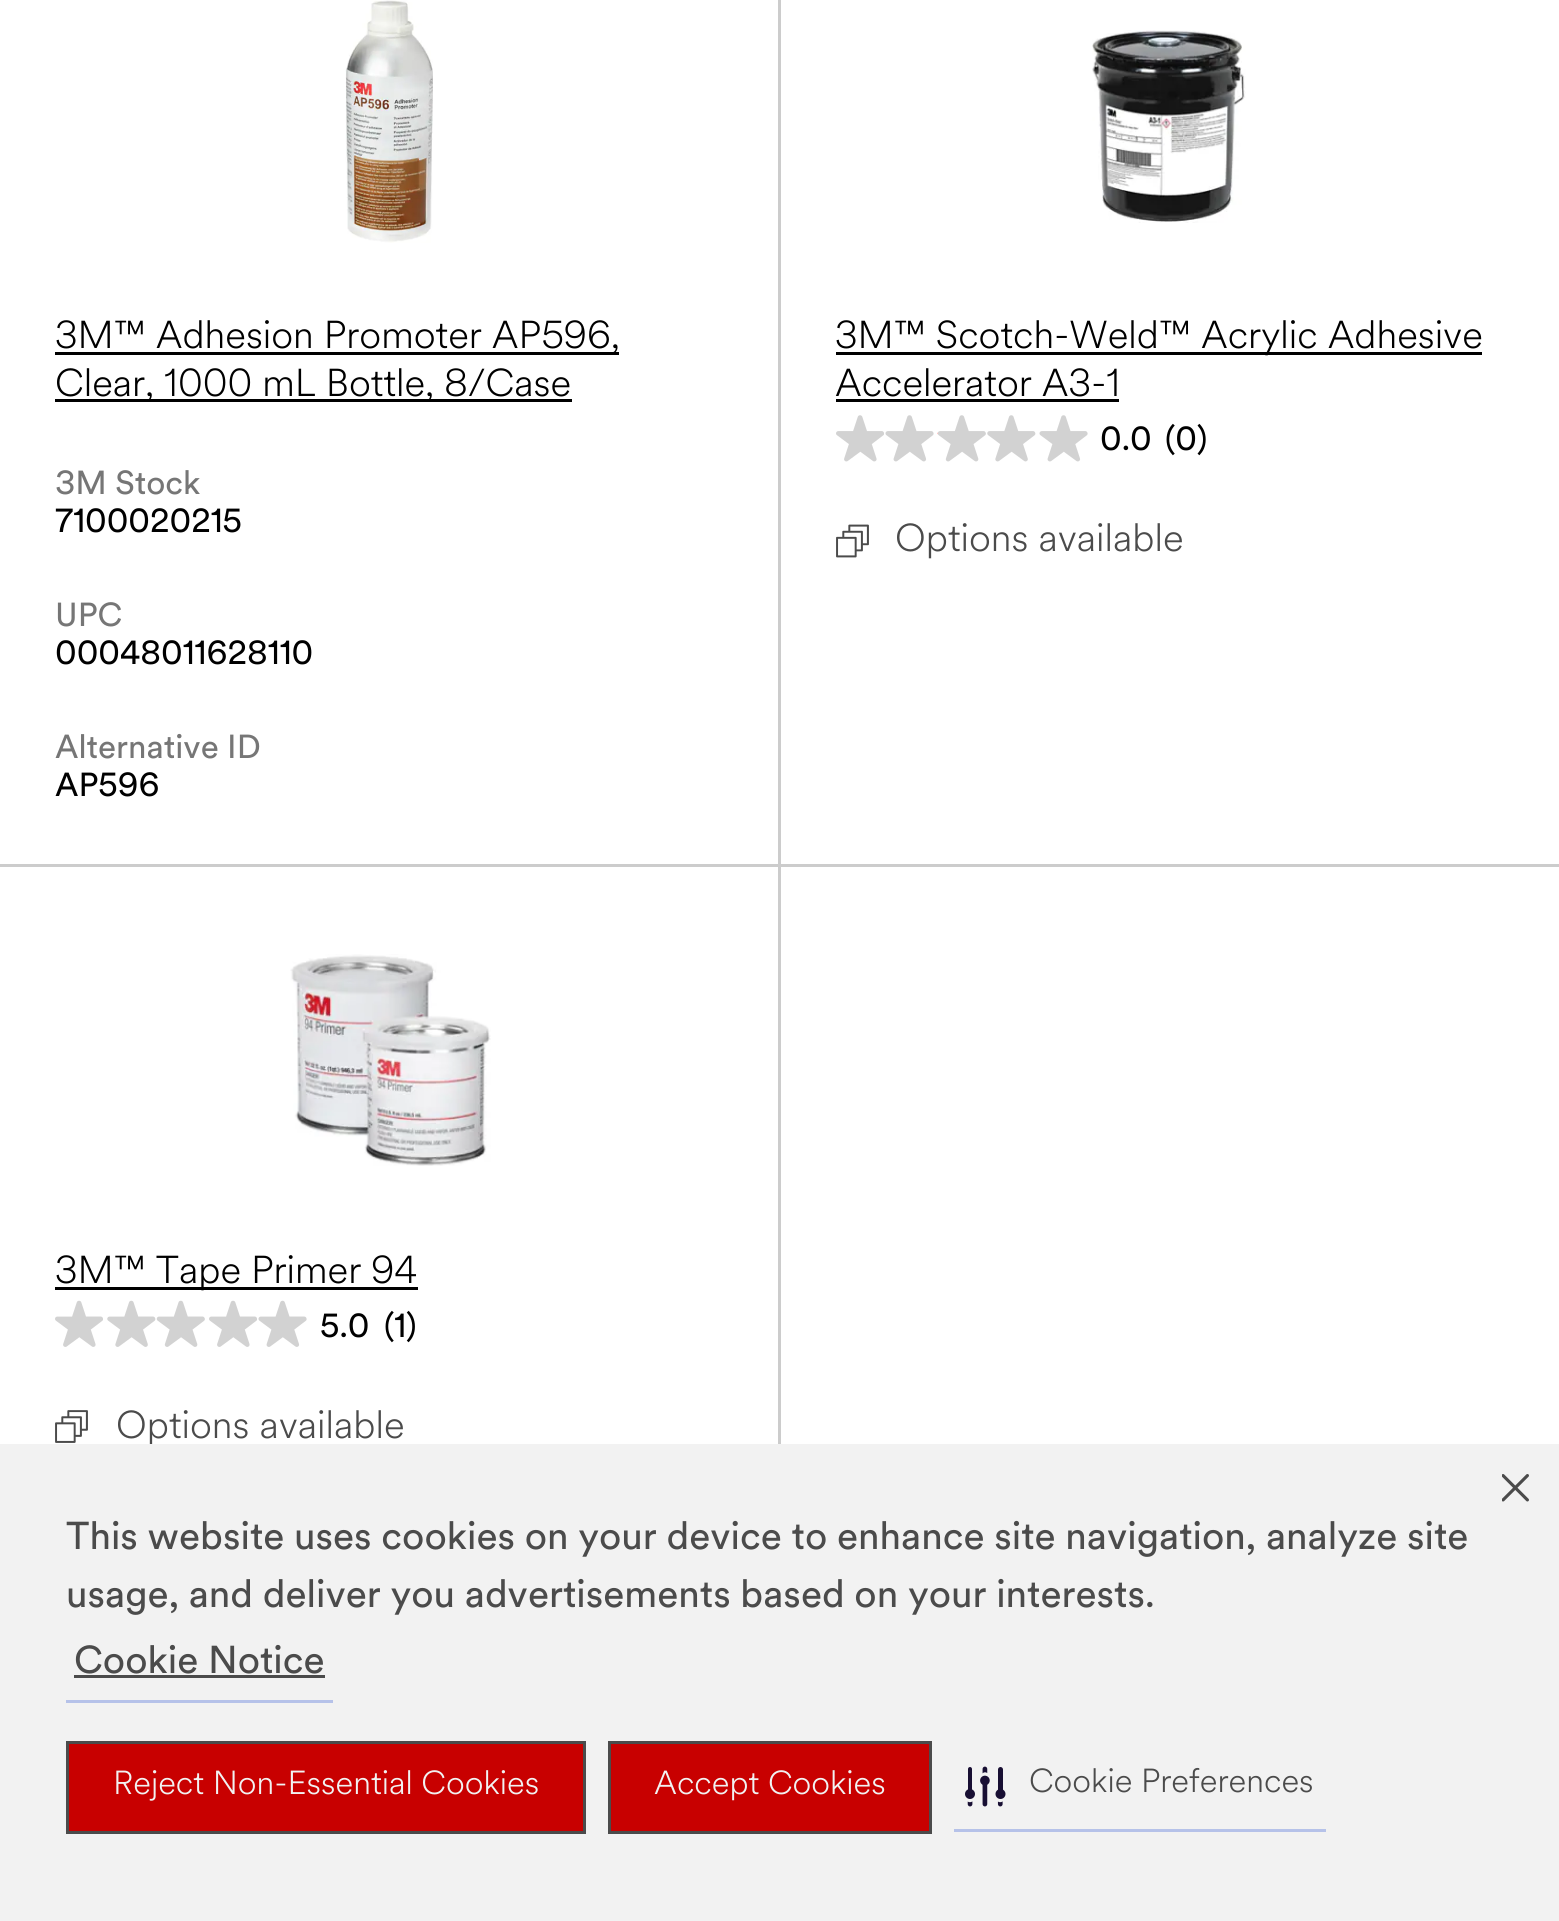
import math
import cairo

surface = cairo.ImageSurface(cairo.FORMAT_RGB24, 1559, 1921)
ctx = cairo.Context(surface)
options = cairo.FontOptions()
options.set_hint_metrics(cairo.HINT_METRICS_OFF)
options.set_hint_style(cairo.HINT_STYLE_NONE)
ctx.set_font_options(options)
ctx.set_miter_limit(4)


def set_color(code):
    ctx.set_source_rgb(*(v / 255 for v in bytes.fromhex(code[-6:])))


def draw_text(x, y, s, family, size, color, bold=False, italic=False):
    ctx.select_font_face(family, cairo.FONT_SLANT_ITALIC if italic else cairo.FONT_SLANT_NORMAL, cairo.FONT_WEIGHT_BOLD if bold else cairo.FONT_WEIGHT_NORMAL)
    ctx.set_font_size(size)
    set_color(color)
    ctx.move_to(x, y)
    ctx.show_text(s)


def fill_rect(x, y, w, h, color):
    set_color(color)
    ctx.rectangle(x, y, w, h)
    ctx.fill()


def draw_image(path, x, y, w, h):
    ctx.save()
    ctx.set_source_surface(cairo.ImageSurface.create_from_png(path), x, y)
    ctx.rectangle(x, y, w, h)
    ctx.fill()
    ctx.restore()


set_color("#ffffff")
ctx.paint()
fill_rect(778, 0, 3, 866, "#cccccc")
fill_rect(0, 864, 1559, 3, "#cccccc")
draw_image("assets/img1.png", 345, 0, 88, 243)
fill_rect(55, 352, 564, 3, "#000000")
draw_text(55, 348, "3M™ Adhesion Promoter AP596,", "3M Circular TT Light", 38.5, "#000000")
fill_rect(55, 399, 517, 3, "#000000")
draw_text(55, 396, "Clear, 1000 mL Bottle, 8/Case", "3M Circular TT Light", 38.5, "#000000")
draw_text(55, 494, "3M Stock", "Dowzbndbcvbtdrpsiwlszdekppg", 33, "#767676")
draw_text(55, 532, "7100020215", "Dowzbndbcvbtdrpsiwlszdekppg", 33, "#000000")
draw_text(55, 626, "UPC", "Dowzbndbcvbtdrpsiwlszdekppg", 33, "#767676")
draw_text(55, 664, "00048011628110", "Dowzbndbcvbtdrpsiwlszdekppg", 33, "#000000")
draw_text(55, 758, "Alternative ID", "Dowzbndbcvbtdrpsiwlszdekppg", 33, "#767676")
draw_text(55, 796, "AP596", "Dowzbndbcvbtdrpsiwlszdekppg", 33, "#000000")
draw_image("assets/img2.png", 1092, 30, 154, 193)
fill_rect(836, 352, 646, 3, "#000000")
draw_text(835, 348, "3M™ Scotch-Weld™ Acrylic Adhesive", "3M Circular TT Light", 38.5, "#000000")
draw_text(835, 396, "Accelerator A3-1", "3M Circular TT Light", 38.5, "#000000")
fill_rect(836, 399, 283, 3, "#000000")
draw_image("assets/img3.png", 836, 415, 48, 47)
draw_image("assets/img4.png", 885, 415, 49, 47)
draw_image("assets/img5.png", 937, 415, 49, 47)
draw_image("assets/img6.png", 987, 415, 49, 47)
draw_image("assets/img4.png", 1039, 415, 49, 47)
draw_text(1100, 450, "0.0", "Dowzbndbcvbtdrpsiwlszdekppg", 33, "#000000")
draw_text(1165, 450, "(0)", "Dowzbndbcvbtdrpsiwlszdekppg", 33, "#000000")
draw_image("assets/img7.png", 836, 524, 33, 34)
draw_text(895, 551, "Options available", "3M Circular TT Light", 38.5, "#4b4b4b")
fill_rect(778, 866, 3, 578, "#cccccc")
draw_image("assets/img8.png", 290, 954, 201, 212)
fill_rect(55, 1287, 363, 3, "#000000")
draw_text(55, 1283, "3M™ Tape Primer 94", "3M Circular TT Light", 38.5, "#000000")
draw_image("assets/img9.png", 55, 1300, 48, 47)
draw_image("assets/img10.png", 107, 1300, 49, 47)
draw_image("assets/img11.png", 156, 1300, 49, 47)
draw_image("assets/img9.png", 209, 1300, 48, 47)
draw_image("assets/img12.png", 258, 1300, 49, 47)
draw_text(320, 1337, "5.0", "Dowzbndbcvbtdrpsiwlszdekppg", 33, "#000000")
draw_text(384, 1337, "(1)", "Dowzbndbcvbtdrpsiwlszdekppg", 33, "#000000")
draw_image("assets/img13.png", 55, 1410, 33, 33)
draw_text(116, 1438, "Options available", "3M Circular TT Light", 38.5, "#4b4b4b")
fill_rect(0, 1444, 1559, 477, "#f2f2f2")
draw_text(66, 1549, "This website uses cookies on your device to enhance site navigation, analyze site", "Dowzbndbcvbtdrpsiwlszdekppg", 38.5, "#4b4b4b")
draw_text(66, 1607, "usage, and deliver you advertisements based on your interests.", "Dowzbndbcvbtdrpsiwlszdekppg", 38.5, "#4b4b4b")
fill_rect(66, 1700, 267, 3, "#b6c2e9")
draw_text(74, 1673, "Cookie Notice", "Dowzbndbcvbtdrpsiwlszdekppg", 38.5, "#4b4b4b")
fill_rect(74, 1675, 251, 3, "#4b4b4b")
draw_image("assets/img14.png", 1502, 1474, 27, 28)
set_color("#c80000")
ctx.rectangle(67.5, 1742.5, 517, 90)
ctx.fill_preserve()
set_color("#4b4b4b")
ctx.set_line_width(3)
ctx.stroke()
draw_text(113, 1794, "Reject Non-Essential Cookies", "3M Circular TT Light", 33, "#f2f2f2")
set_color("#c80000")
ctx.rectangle(609.5, 1742.5, 321, 90)
ctx.fill_preserve()
set_color("#4b4b4b")
ctx.stroke()
draw_text(654, 1794, "Accept Cookies", "3M Circular TT Light", 33, "#f2f2f2")
fill_rect(954, 1829, 372, 3, "#b6c2e9")
draw_image("assets/img15.png", 965, 1766, 41, 41)
draw_text(1029, 1792, "Cookie Preferences", "3M Circular TT Light", 33, "#4b4b4b")
surface.write_to_png("output.png")
